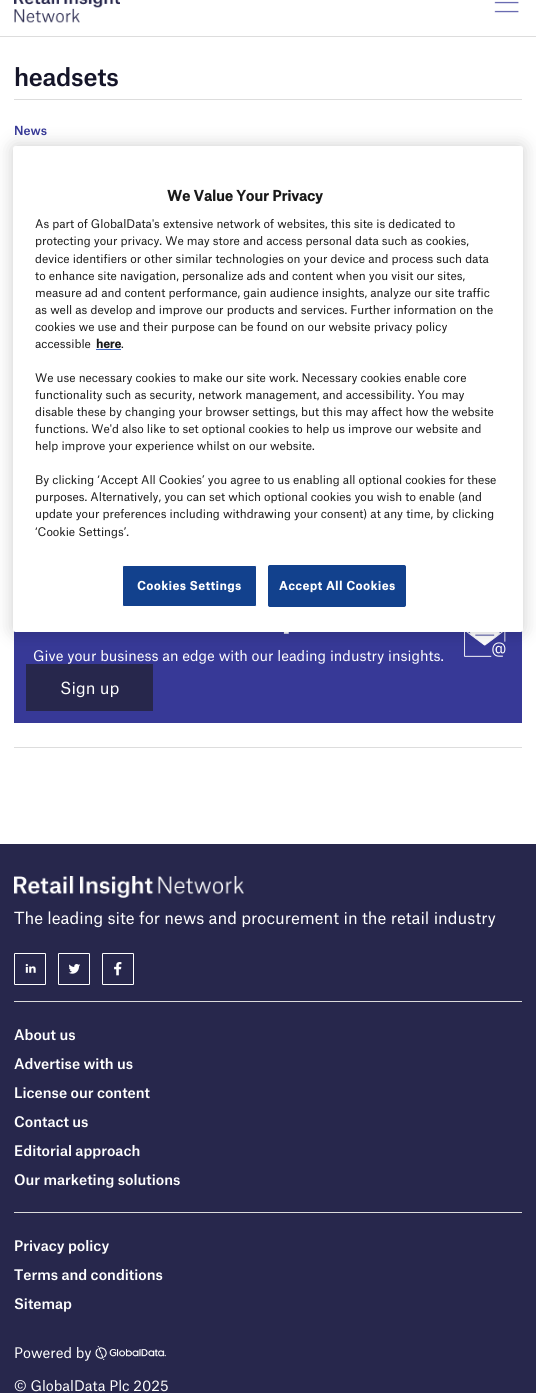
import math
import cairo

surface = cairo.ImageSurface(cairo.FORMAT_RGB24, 536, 1393)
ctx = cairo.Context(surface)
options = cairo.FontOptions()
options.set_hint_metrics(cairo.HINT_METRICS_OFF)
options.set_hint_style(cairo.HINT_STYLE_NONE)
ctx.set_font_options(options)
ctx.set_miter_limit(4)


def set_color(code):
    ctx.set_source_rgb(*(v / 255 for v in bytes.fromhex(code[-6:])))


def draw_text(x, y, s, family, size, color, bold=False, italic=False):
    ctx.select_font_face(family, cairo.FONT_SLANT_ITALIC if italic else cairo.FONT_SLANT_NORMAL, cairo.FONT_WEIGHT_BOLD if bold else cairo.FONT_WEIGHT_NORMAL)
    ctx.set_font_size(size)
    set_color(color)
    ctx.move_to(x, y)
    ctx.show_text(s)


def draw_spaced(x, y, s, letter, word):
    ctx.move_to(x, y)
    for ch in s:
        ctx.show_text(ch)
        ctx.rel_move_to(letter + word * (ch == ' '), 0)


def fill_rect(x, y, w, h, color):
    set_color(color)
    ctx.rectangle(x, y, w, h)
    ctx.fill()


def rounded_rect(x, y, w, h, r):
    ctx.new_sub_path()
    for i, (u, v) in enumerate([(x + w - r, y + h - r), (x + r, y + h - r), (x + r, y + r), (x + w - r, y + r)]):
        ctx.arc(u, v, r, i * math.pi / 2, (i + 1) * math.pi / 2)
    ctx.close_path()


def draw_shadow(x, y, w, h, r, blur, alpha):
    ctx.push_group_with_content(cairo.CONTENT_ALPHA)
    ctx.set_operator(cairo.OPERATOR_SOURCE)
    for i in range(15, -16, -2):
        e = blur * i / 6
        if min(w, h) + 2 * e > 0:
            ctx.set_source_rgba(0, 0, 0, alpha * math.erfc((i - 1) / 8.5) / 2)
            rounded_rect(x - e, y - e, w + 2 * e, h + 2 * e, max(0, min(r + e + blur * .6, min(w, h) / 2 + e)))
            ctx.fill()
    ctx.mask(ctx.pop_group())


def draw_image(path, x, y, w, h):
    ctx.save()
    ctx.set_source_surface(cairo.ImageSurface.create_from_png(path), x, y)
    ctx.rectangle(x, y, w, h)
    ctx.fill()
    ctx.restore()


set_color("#ffffff")
ctx.paint()
fill_rect(0, 36, 536, 1, "#dddddd")
draw_image("assets/img1.png", 14, 0, 106, 23)
draw_image("assets/img2.png", 494, 1, 25, 12)
fill_rect(14, 99, 508, 1, "#dddddd")
ctx.select_font_face("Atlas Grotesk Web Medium")
ctx.set_font_size(24)
set_color("#151529")
draw_spaced(14, 86, "headsets", -0.25, 0)
draw_text(14, 135, "News", "Atlas Grotesk Web Medium", 12, "#373997")
fill_rect(14, 631, 508, 92, "#373997")
draw_text(283, 638, "-", "Atlas Grotesk Web Medium", 16, "#ffffff")
draw_text(33, 661, "Give your business an edge with our leading industry insights.", "Atlas Grotesk Web", 14, "#ffffff")
draw_image("assets/img3.png", 464, 632, 42, 25)
fill_rect(26, 664, 127, 47, "#27274c")
draw_text(60, 694, "Sign up", "Atlas Grotesk Web", 16, "#ffffff")
fill_rect(14, 747, 508, 1, "#dddddd")
set_color("#000000")
draw_shadow(13, 146, 510, 486, 2.5, 9, 0.2)
set_color("#ffffff")
rounded_rect(13, 146, 510, 486, 2.5)
ctx.fill()
draw_text(167, 201, "We Value Your Privacy", "Atlas Grotesk Web", 14, "#1a1a1a", bold=True)
draw_text(35, 228, "As part of GlobalData's extensive network of websites, this site is dedicated to", "Atlas Grotesk Web", 11.4, "#1a1a1a")
draw_text(35, 245, "protecting your privacy. We may store and access personal data such as cookies,", "Atlas Grotesk Web", 11.4, "#1a1a1a")
draw_text(35, 263, "device identifiers or other similar technologies on your device and process such data", "Atlas Grotesk Web", 11.4, "#1a1a1a")
draw_text(35, 280, "to enhance site navigation, personalize ads and content when you visit our sites,", "Atlas Grotesk Web", 11.4, "#1a1a1a")
draw_text(35, 297, "measure ad and content performance, gain audience insights, analyze our site traffic", "Atlas Grotesk Web", 11.4, "#1a1a1a")
draw_text(35, 314, "as well as develop and improve our products and services. Further information on the", "Atlas Grotesk Web", 11.4, "#1a1a1a")
draw_text(35, 331, "cookies we use and their purpose can be found on our website privacy policy", "Atlas Grotesk Web", 11.4, "#1a1a1a")
draw_text(35, 348, "accessible", "Atlas Grotesk Web", 11.4, "#1a1a1a")
draw_text(96, 348, "here", "Atlas Grotesk Web", 11.4, "#1a1a1a", bold=True)
fill_rect(96, 349, 25, 1, "#3860be")
draw_text(121, 348, ".", "Atlas Grotesk Web", 11.4, "#1a1a1a")
draw_text(35, 382, "We use necessary cookies to make our site work. Necessary cookies enable core", "Atlas Grotesk Web", 11.4, "#1a1a1a")
draw_text(35, 399, "functionality such as security, network management, and accessibility. You may", "Atlas Grotesk Web", 11.4, "#1a1a1a")
draw_text(35, 416, "disable these by changing your browser settings, but this may affect how the website", "Atlas Grotesk Web", 11.4, "#1a1a1a")
draw_text(35, 433, "functions. We'd also like to set optional cookies to help us improve our website and", "Atlas Grotesk Web", 11.4, "#1a1a1a")
draw_text(35, 450, "help improve your experience whilst on our website.", "Atlas Grotesk Web", 11.4, "#1a1a1a")
draw_text(35, 484, "By clicking ‘Accept All Cookies’ you agree to us enabling all optional cookies for these", "Atlas Grotesk Web", 11.4, "#1a1a1a")
draw_text(35, 501, "purposes. Alternatively, you can set which optional cookies you wish to enable (and", "Atlas Grotesk Web", 11.4, "#1a1a1a")
draw_text(35, 518, "update your preferences including withdrawing your consent) at any time, by clicking", "Atlas Grotesk Web", 11.4, "#1a1a1a")
draw_text(35, 536, "‘Cookie Settings’.", "Atlas Grotesk Web", 11.4, "#1a1a1a")
set_color("#12418d")
rounded_rect(122.5, 565.5, 134, 41, 1.5)
ctx.fill_preserve()
set_color("#ffffff")
ctx.set_line_width(1)
ctx.stroke()
ctx.select_font_face("Atlas Grotesk Web", cairo.FONT_SLANT_NORMAL, cairo.FONT_WEIGHT_BOLD)
draw_spaced(137, 590, "Cookies Settings", 0.6, 0)
set_color("#12418d")
rounded_rect(268.5, 565.5, 137, 41, 1.5)
ctx.fill_preserve()
ctx.stroke()
set_color("#ffffff")
draw_spaced(279, 590, "Accept All Cookies", 0.6, 0)
fill_rect(0, 844, 536, 549, "#27274c")
draw_image("assets/img4.png", 14, 876, 230, 22)
draw_text(14, 924, "The leading site for news and procurement in the retail industry", "Atlas Grotesk Web", 16, "#ffffff")
rounded_rect(14.5, 953.5, 31, 31, 0.5)
ctx.stroke()
draw_image("assets/img5.png", 25, 964, 11, 9)
rounded_rect(58.5, 953.5, 31, 31, 0.5)
ctx.stroke()
draw_image("assets/img6.png", 68, 964, 12, 10)
rounded_rect(102.5, 953.5, 31, 31, 0.5)
ctx.stroke()
draw_image("assets/img7.png", 114, 962, 8, 14)
fill_rect(14, 1001, 508, 1, "#dbdbdb")
draw_text(14, 1040, "About us", "Atlas Grotesk Web Medium", 14, "#ffffff")
draw_text(14, 1069, "Advertise with us", "Atlas Grotesk Web Medium", 14, "#ffffff")
draw_text(14, 1098, "License our content", "Atlas Grotesk Web Medium", 14, "#ffffff")
draw_text(14, 1127, "Contact us", "Atlas Grotesk Web Medium", 14, "#ffffff")
draw_text(14, 1156, "Editorial approach", "Atlas Grotesk Web Medium", 14, "#ffffff")
draw_text(14, 1185, "Our marketing solutions", "Atlas Grotesk Web Medium", 14, "#ffffff")
fill_rect(14, 1212, 508, 1, "#dbdbdb")
draw_text(14, 1251, "Privacy policy", "Atlas Grotesk Web Medium", 14, "#ffffff")
draw_text(14, 1280, "Terms and conditions", "Atlas Grotesk Web Medium", 14, "#ffffff")
draw_text(14, 1309, "Sitemap", "Atlas Grotesk Web Medium", 14, "#ffffff")
draw_text(14, 1358, "Powered by", "Atlas Grotesk Web", 14, "#ffffff")
draw_image("assets/img8.png", 95, 1346, 71, 14)
draw_text(14, 1391, "© GlobalData Plc 2025", "Atlas Grotesk Web", 14, "#ffffff")
surface.write_to_png("output.png")
